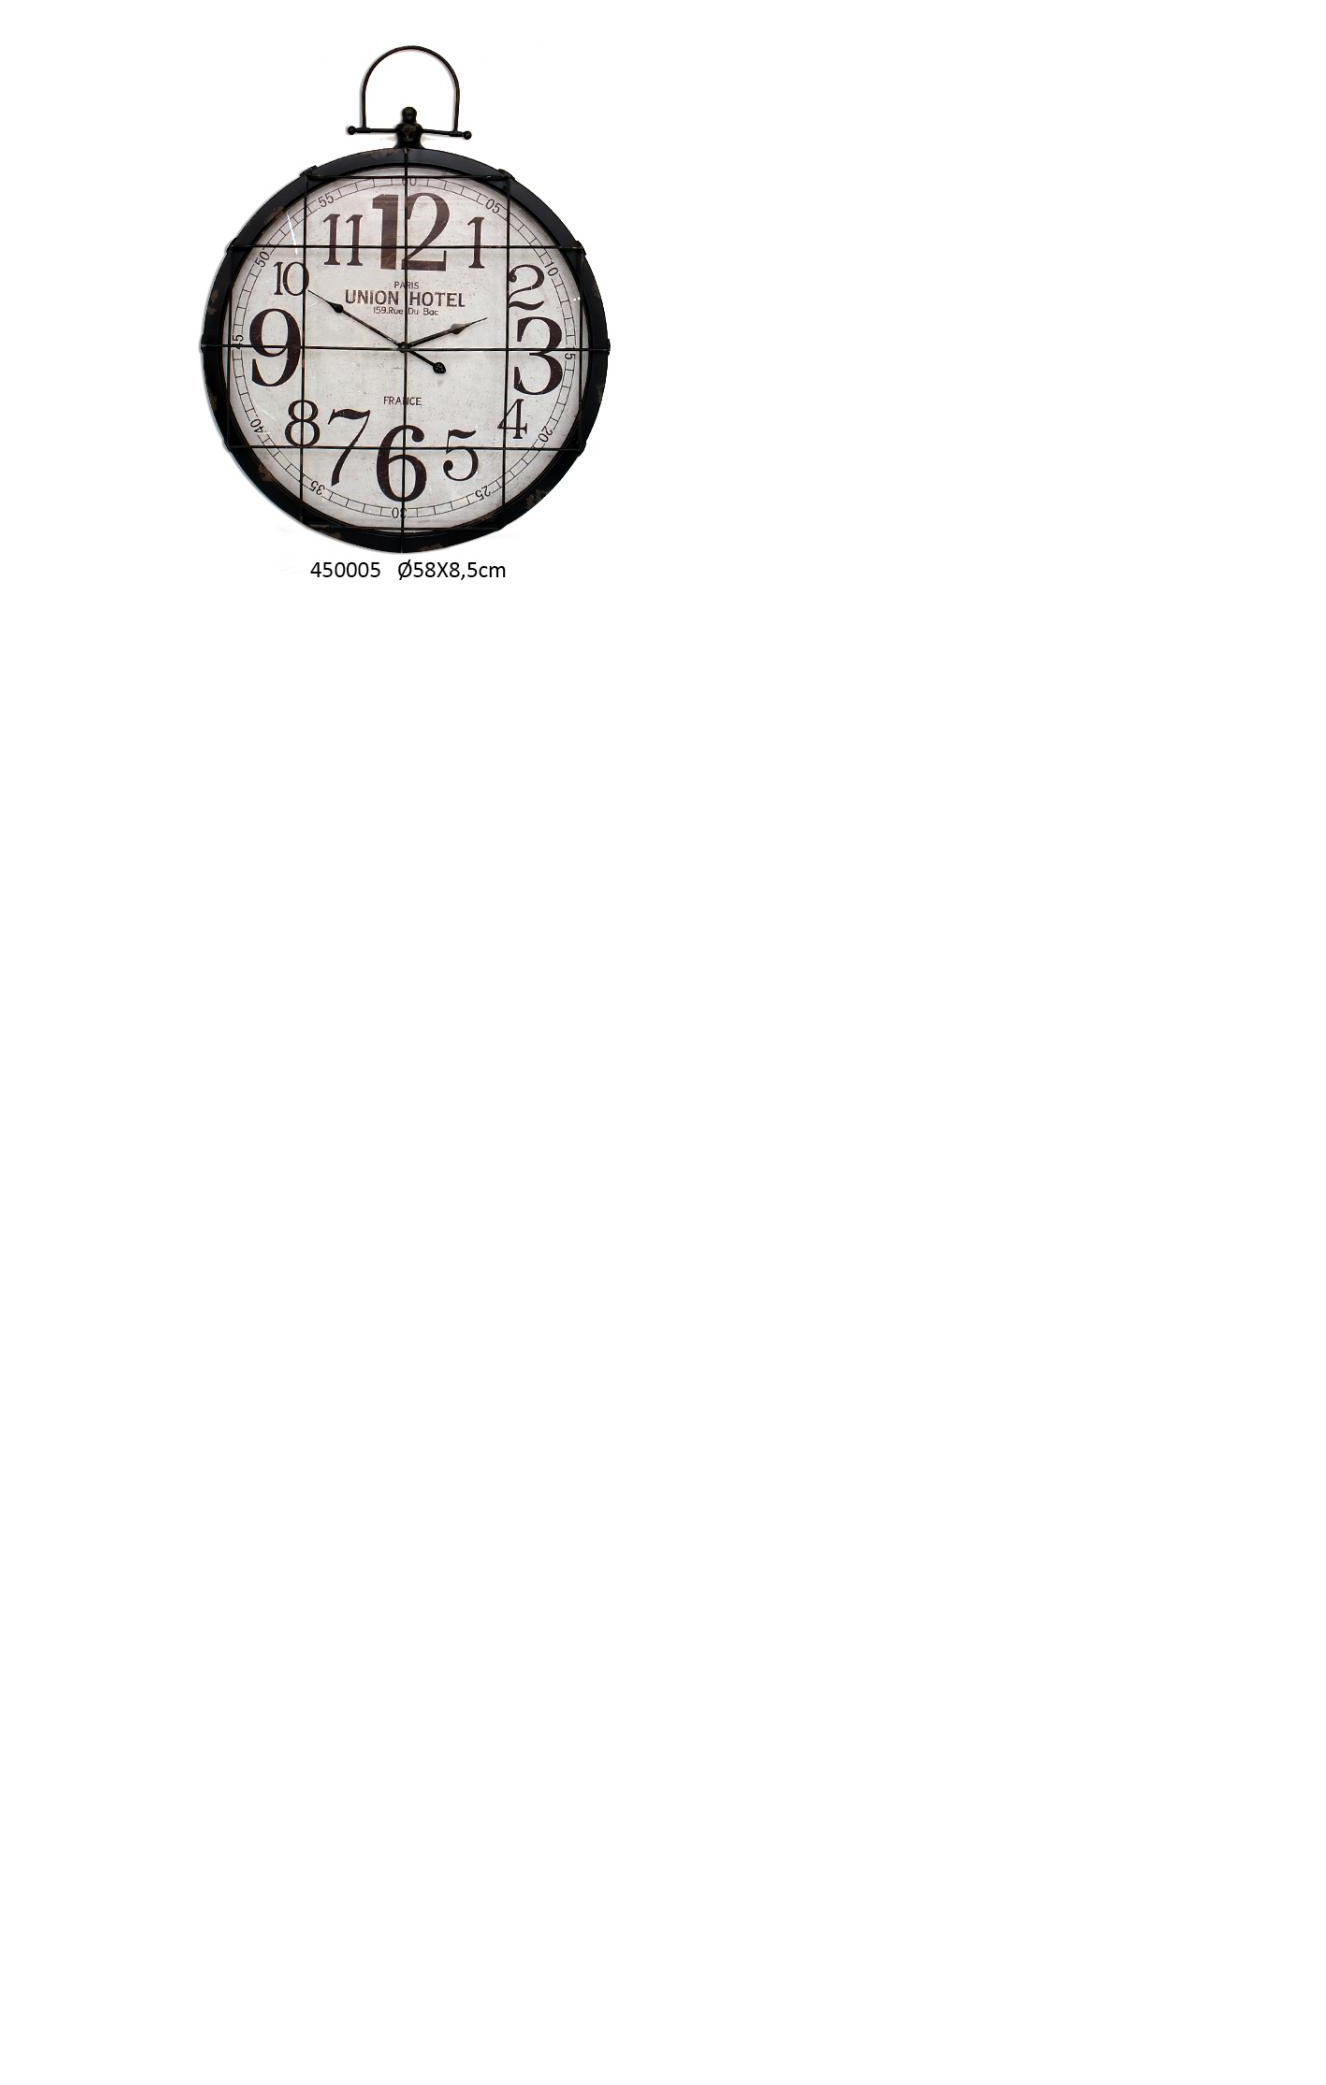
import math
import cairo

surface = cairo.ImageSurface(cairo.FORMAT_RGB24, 1326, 2085)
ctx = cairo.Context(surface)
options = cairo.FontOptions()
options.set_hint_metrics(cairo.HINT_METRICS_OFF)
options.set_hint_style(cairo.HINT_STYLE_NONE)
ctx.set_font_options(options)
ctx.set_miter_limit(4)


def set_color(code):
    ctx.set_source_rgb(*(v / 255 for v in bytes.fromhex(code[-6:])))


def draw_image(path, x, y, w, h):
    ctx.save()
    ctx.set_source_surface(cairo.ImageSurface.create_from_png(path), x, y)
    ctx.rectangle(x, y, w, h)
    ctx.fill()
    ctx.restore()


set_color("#ffffff")
ctx.paint()
draw_image("assets/img1.png", 194, 40, 422, 544)
surface.write_to_png("output.png")
